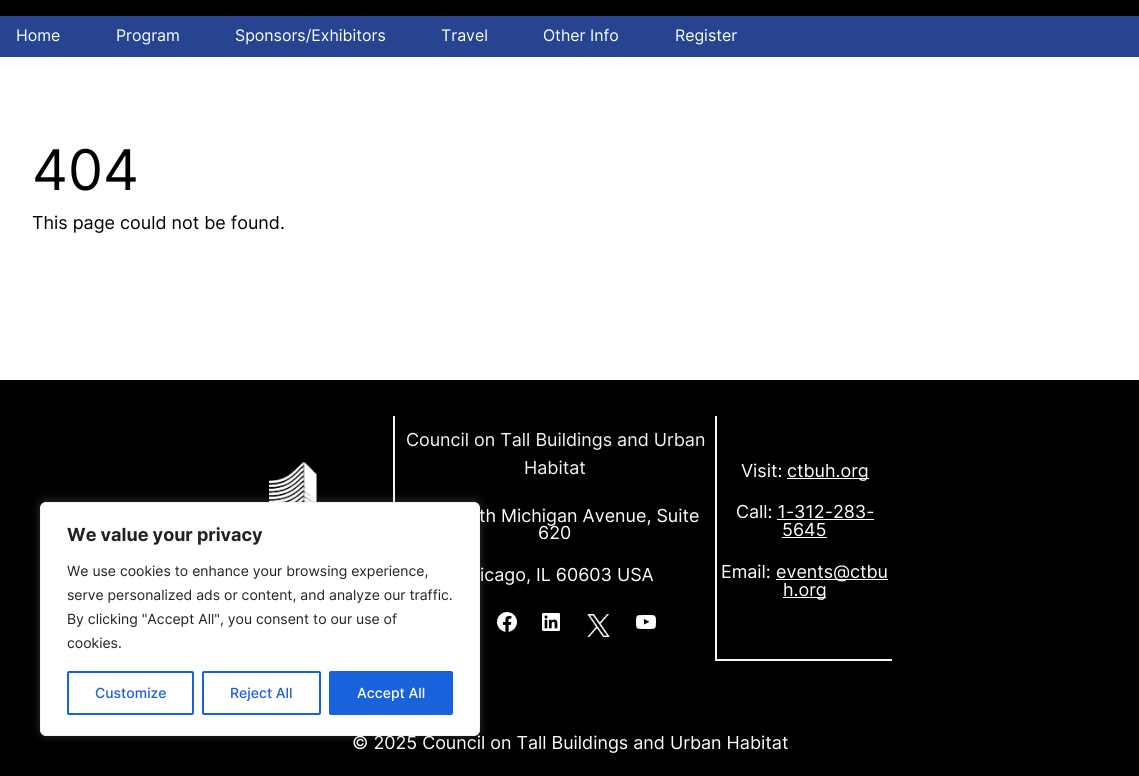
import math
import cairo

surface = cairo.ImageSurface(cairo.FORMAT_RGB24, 1139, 776)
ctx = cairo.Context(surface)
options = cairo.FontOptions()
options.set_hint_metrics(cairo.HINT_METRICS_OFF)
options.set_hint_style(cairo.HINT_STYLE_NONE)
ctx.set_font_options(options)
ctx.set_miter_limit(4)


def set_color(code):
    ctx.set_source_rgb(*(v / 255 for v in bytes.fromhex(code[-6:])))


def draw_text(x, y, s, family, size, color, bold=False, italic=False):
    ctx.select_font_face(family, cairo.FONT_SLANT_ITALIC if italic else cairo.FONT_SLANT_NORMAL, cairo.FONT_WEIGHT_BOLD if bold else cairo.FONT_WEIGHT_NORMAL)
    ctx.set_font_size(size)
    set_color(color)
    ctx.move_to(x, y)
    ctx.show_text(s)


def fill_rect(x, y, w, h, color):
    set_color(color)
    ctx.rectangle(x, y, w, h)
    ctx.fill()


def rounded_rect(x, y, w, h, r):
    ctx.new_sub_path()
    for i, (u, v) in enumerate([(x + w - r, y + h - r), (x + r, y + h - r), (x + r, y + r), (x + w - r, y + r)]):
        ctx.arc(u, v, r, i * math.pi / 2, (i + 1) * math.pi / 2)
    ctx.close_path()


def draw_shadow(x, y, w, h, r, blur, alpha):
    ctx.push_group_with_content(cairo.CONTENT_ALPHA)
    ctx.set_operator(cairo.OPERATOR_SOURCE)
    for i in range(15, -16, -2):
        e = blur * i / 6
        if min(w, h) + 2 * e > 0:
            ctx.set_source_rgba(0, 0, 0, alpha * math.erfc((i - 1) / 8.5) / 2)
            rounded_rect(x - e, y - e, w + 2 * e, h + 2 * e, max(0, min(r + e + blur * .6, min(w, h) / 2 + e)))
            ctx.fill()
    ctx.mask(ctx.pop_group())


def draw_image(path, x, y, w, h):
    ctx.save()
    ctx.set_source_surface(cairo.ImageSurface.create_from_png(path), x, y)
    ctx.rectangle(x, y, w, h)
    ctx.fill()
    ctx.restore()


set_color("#ffffff")
ctx.paint()
fill_rect(0, 0, 1139, 16, "#000000")
fill_rect(0, 16, 1139, 41, "#274490")
draw_text(16, 41, "Home", "Inter", 15.9, "#ffffff")
draw_text(116, 41, "Program", "Inter", 15.9, "#ffffff")
draw_text(235, 41, "Sponsors/Exhibitors", "Inter", 15.9, "#ffffff")
draw_text(441, 41, "Travel", "Inter", 15.9, "#ffffff")
draw_text(543, 41, "Other Info", "Inter", 15.9, "#ffffff")
draw_text(675, 41, "Register", "Inter", 15.9, "#ffffff")
draw_text(32, 190, "404", "Inter", 56, "#000000")
draw_text(32, 229, "This page could not be found.", "Inter", 17.9, "#000000")
fill_rect(0, 380, 1139, 396, "#000000")
fill_rect(393, 416, 2, 86, "#f6f6f6")
draw_image("assets/img1.png", 269, 462, 48, 40)
fill_rect(715, 416, 2, 245, "#f6f6f6")
draw_text(406, 446, "Council on Tall Buildings and Urban", "Inter", 17.9, "#f6f6f6")
draw_text(524, 474, "Habitat", "Inter", 17.9, "#f6f6f6")
draw_text(479, 522, "th Michigan Avenue, Suite", "Inter", 17.9, "#ffffff")
draw_text(538, 539, "620", "Inter", 17.9, "#ffffff")
draw_text(480, 581, "icago, IL 60603 USA", "Inter", 17.9, "#ffffff")
draw_image("assets/img2.png", 497, 612, 20, 20)
draw_image("assets/img3.png", 542, 613, 18, 18)
draw_image("assets/img4.png", 587, 614, 23, 23)
draw_image("assets/img5.png", 636, 615, 20, 14)
fill_rect(717, 659, 175, 2, "#f6f6f6")
draw_text(741, 477, "Visit:", "Inter", 17.9, "#ffffff")
fill_rect(787, 478, 82, 1, "#ffffff")
draw_text(787, 477, "ctbuh.org", "Inter", 17.9, "#ffffff")
draw_text(736, 518, "Call: 1-312-283-", "Inter", 17.9, "#ffffff")
draw_text(782, 536, "5645", "Inter", 17.9, "#ffffff")
fill_rect(777, 519, 97, 1, "#ffffff")
fill_rect(782, 537, 45, 1, "#ffffff")
draw_text(721, 578, "Email:", "Inter", 17.9, "#ffffff")
fill_rect(776, 579, 112, 1, "#ffffff")
draw_text(776, 578, "events@ctbu", "Inter", 17.9, "#ffffff")
fill_rect(783, 597, 43, 1, "#ffffff")
draw_text(783, 596, "h.org", "Inter", 17.9, "#ffffff")
draw_text(352, 749, "© 2025 Council on Tall Buildings and Urban Habitat", "Inter", 17.9, "#ffffff")
set_color("#acabab")
draw_shadow(40, 501, 440, 234, 6, 5, 0.3)
set_color("#ffffff")
rounded_rect(40.5, 502.5, 439, 233, 5.5)
ctx.fill_preserve()
set_color("#f4f4f4")
ctx.set_line_width(1)
ctx.stroke()
draw_text(67, 541, "We value your privacy", "Inter", 18, "#212121", bold=True)
draw_text(67, 576, "We use cookies to enhance your browsing experience,", "Inter", 14, "#212121")
draw_text(67, 600, "serve personalized ads or content, and analyze our traffic.", "Inter", 14, "#212121")
draw_text(67, 624, "By clicking \"Accept All\", you consent to our use of", "Inter", 14, "#212121")
draw_text(67, 648, "cookies.", "Inter", 14, "#212121")
rounded_rect(68, 672, 125, 42, 1)
set_color("#1863dc")
ctx.set_line_width(2)
ctx.stroke()
draw_text(95, 698, "Customize", "Inter Medium", 14, "#1863dc")
rounded_rect(203, 672, 117, 42, 1)
ctx.stroke()
draw_text(230, 698, "Reject All", "Inter Medium", 14, "#1863dc")
rounded_rect(330, 672, 122, 42, 1)
ctx.fill_preserve()
ctx.stroke()
draw_text(357, 698, "Accept All", "Inter Medium", 14, "#ffffff")
surface.write_to_png("output.png")
